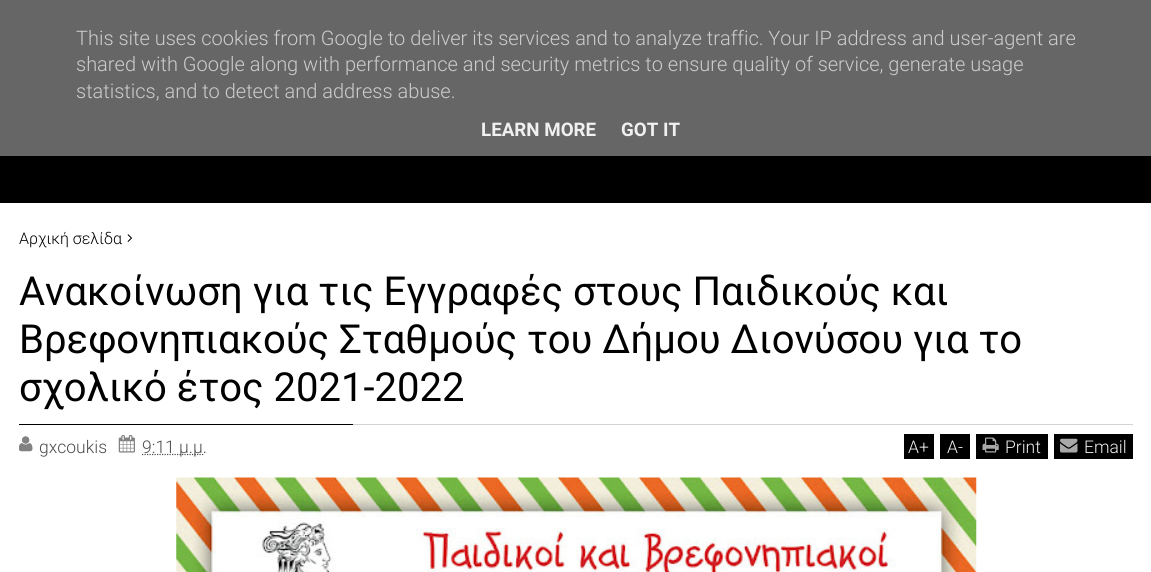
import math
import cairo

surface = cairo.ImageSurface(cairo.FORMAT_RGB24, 1151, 572)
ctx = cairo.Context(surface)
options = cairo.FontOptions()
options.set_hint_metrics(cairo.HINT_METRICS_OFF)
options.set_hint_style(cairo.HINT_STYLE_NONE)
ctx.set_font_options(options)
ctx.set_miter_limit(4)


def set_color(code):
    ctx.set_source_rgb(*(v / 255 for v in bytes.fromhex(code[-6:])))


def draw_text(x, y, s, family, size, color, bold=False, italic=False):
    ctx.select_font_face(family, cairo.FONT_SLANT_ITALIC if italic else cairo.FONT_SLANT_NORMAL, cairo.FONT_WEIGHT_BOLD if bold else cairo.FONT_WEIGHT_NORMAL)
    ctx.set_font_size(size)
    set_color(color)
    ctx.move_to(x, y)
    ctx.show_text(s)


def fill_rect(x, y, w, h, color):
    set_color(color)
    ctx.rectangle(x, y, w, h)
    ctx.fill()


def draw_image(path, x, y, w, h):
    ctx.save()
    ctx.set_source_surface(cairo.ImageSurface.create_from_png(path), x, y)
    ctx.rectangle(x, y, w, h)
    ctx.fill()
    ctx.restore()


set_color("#ffffff")
ctx.paint()
fill_rect(0, 0, 1151, 156, "#666666")
draw_text(76, 45, "This site uses cookies from Google to deliver its services and to analyze traffic. Your IP address and user-agent are", "Roboto Light", 20, "#cccccc")
draw_text(76, 71, "shared with Google along with performance and security metrics to ensure quality of service, generate usage", "Roboto Light", 20, "#cccccc")
draw_text(76, 98, "statistics, and to detect and address abuse.", "Roboto Light", 20, "#cccccc")
draw_text(481, 136, "LEARN MORE", "Roboto", 18.75, "#f0f0f0", bold=True)
draw_text(621, 136, "GOT IT", "Roboto", 18.75, "#f0f0f0", bold=True)
fill_rect(0, 156, 1151, 47, "#000000")
draw_text(19, 244, "Αρχική σελίδα", "Roboto Light", 16, "#000000")
draw_image("assets/img1.png", 127, 234, 5, 8)
draw_text(19, 305, "Ανακοίνωση για τις Εγγραφές στους Παιδικούς και", "Roboto", 40, "#000000")
draw_text(19, 353, "Βρεφονηπιακούς Σταθμούς του Δήμου Διονύσου για το", "Roboto", 40, "#000000")
draw_text(19, 401, "σχολικό έτος 2021-2022", "Roboto", 40, "#000000")
fill_rect(19, 424, 334, 1, "#000000")
fill_rect(353, 424, 780, 1, "#d3d3d3")
draw_image("assets/img2.png", 19, 436, 14, 16)
draw_text(39, 453, "gxcoukis", "Roboto Light", 17.5, "#4d4d4d")
draw_image("assets/img3.png", 118, 435, 17, 18)
ctx.new_path()
ctx.move_to(142, 454.5)
ctx.line_to(204.5, 454.5)
ctx.set_line_width(1.2)
ctx.set_dash([1.25, 1.25])
ctx.stroke()
draw_text(142, 453, "9:11 μ.μ.", "Roboto Light", 17.5, "#4d4d4d")
fill_rect(904, 434, 30, 25, "#000000")
draw_text(908, 453, "A+", "Roboto Light", 17.5, "#f0f0f0")
fill_rect(940, 434, 30, 25, "#000000")
draw_text(947, 453, "A-", "Roboto Light", 17.5, "#f0f0f0")
fill_rect(976, 434, 72, 25, "#000000")
draw_image("assets/img4.png", 982, 437, 17, 16)
draw_text(1005, 453, "Print", "Roboto Light", 17.5, "#f0f0f0")
fill_rect(1054, 434, 79, 25, "#000000")
draw_image("assets/img5.png", 1060, 438, 18, 15)
draw_text(1084, 453, "Email", "Roboto Light", 17.5, "#f0f0f0")
draw_image("assets/img6.png", 176, 477, 801, 95)
surface.write_to_png("output.png")
